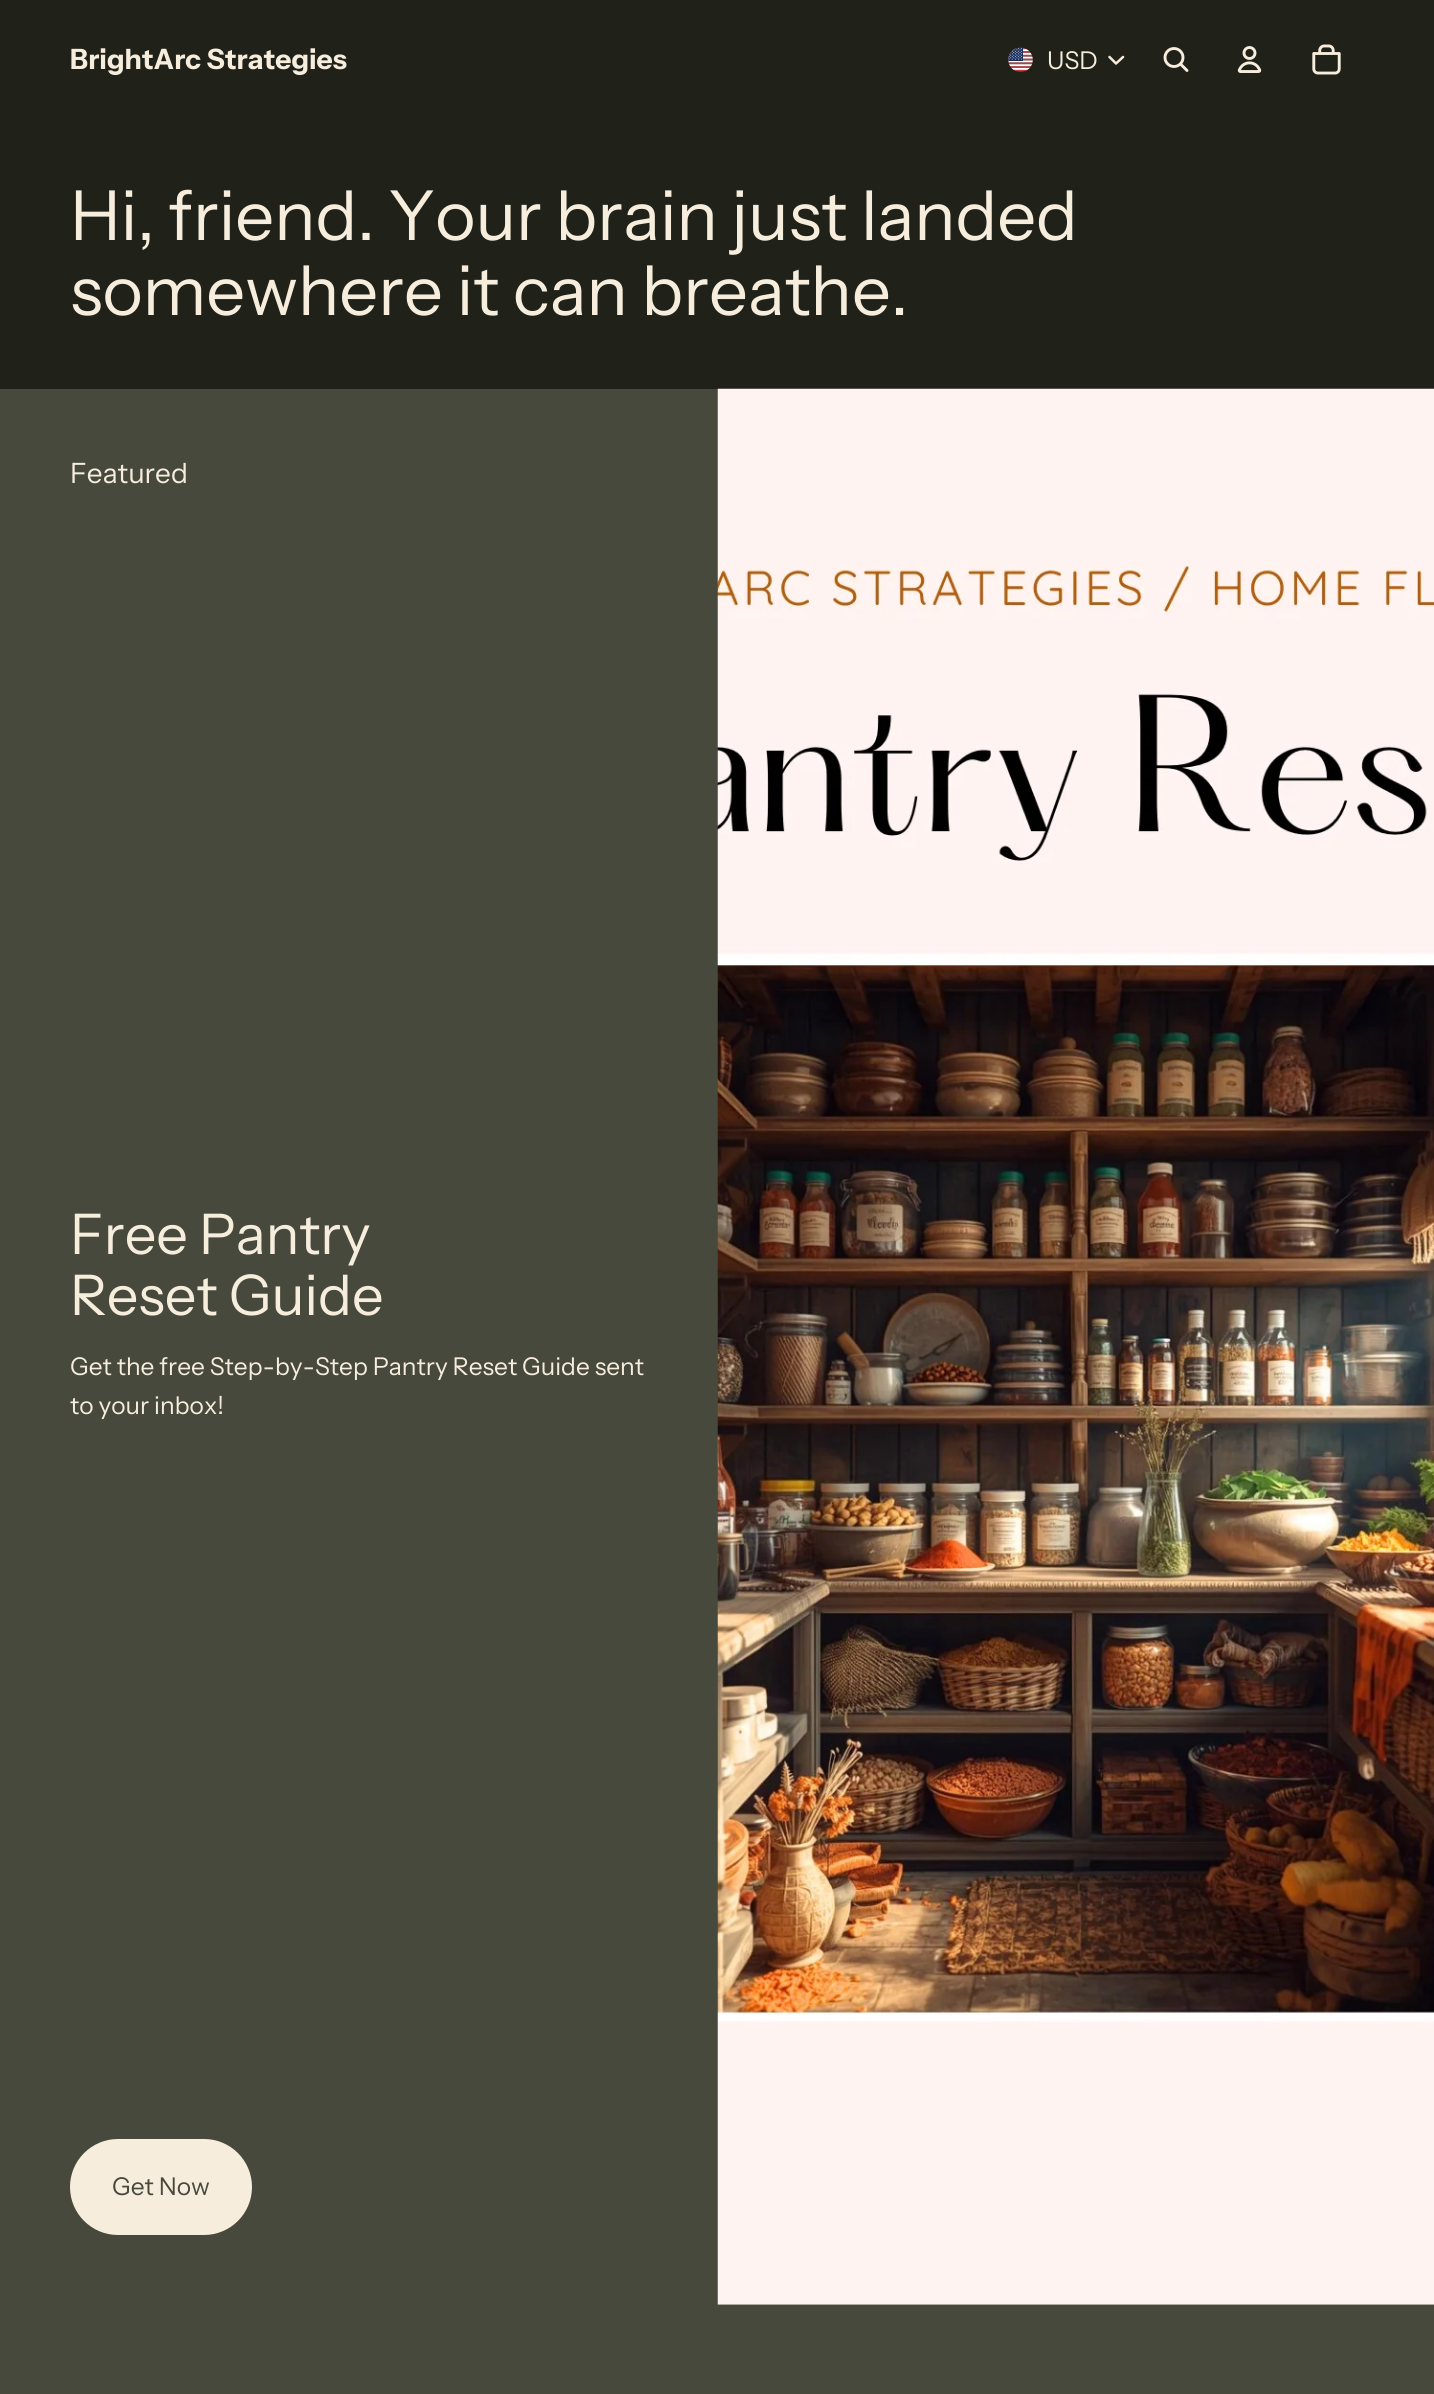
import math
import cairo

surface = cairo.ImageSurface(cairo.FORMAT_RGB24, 1434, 2394)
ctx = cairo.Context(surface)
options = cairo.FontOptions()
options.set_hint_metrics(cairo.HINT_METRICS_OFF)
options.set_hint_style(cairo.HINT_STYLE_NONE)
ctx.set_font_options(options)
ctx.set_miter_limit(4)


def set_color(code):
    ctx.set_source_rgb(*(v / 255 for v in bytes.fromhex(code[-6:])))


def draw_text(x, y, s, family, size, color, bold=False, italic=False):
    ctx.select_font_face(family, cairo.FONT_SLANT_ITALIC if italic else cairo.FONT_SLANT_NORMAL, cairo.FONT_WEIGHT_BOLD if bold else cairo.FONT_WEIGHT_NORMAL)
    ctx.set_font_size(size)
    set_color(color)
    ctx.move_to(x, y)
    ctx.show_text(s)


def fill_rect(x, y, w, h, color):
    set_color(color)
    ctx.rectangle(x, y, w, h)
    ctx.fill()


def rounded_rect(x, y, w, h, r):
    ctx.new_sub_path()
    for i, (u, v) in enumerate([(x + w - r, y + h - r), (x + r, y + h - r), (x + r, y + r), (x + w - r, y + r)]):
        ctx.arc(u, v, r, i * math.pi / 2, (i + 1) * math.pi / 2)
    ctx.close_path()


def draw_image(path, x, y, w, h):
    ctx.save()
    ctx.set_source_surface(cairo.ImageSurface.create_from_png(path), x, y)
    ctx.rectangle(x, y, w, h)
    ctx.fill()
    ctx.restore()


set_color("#202219")
ctx.paint()
draw_text(70, 69, "BrightArc Strategies", "Instrument Sans", 28, "#f6eddd", bold=True)
draw_image("assets/img1.png", 1008, 47, 25, 25)
draw_text(1047, 69, "USD", "Instrument Sans", 24.5, "#f6eddd")
ctx.new_path()
ctx.move_to(1123, 57)
ctx.line_to(1116, 63.5)
ctx.line_to(1109.5, 57)
ctx.set_line_width(2.5)
ctx.set_line_cap(cairo.LINE_CAP_ROUND)
ctx.set_line_join(cairo.LINE_JOIN_ROUND)
ctx.stroke()
ctx.arc(1174, 57.5, 9, 0, 2 * math.pi)
ctx.set_line_width(2.9)
ctx.set_line_cap(cairo.LINE_CAP_BUTT)
ctx.set_line_join(cairo.LINE_JOIN_MITER)
ctx.stroke()
ctx.new_path()
ctx.move_to(1181, 64.5)
ctx.line_to(1187, 70.5)
ctx.set_line_cap(cairo.LINE_CAP_ROUND)
ctx.set_line_join(cairo.LINE_JOIN_ROUND)
ctx.stroke()
draw_image("assets/img2.png", 1237, 46, 25, 27)
draw_image("assets/img3.png", 1312, 44, 29, 31)
draw_text(70, 240, "Hi, friend. Your brain just landed", "Instrument Sans", 68.9, "#f6eddd")
draw_text(70, 315, "somewhere it can breathe.", "Instrument Sans", 68.9, "#f6eddd")
fill_rect(0, 389, 1434, 2005, "#46493c")
draw_text(70, 483, "Featured", "Instrument Sans", 28, "#f6eddd")
draw_text(70, 1254, "Free Pantry", "Instrument Sans", 56, "#f6eddd")
draw_text(70, 1315, "Reset Guide", "Instrument Sans", 56, "#f6eddd")
draw_text(70, 1375, "Get the free Step-by-Step Pantry Reset Guide sent", "Instrument Sans", 24.5, "#f6eddd")
draw_text(70, 1414, "to your inbox!", "Instrument Sans", 24.5, "#f6eddd")
rounded_rect(70, 2139, 182, 96, 48)
ctx.fill()
draw_text(112, 2195, "Get Now", "Instrument Sans", 24.5, "#46493c")
draw_image("assets/img4.png", 717, 388, 717, 1917)
surface.write_to_png("output.png")
